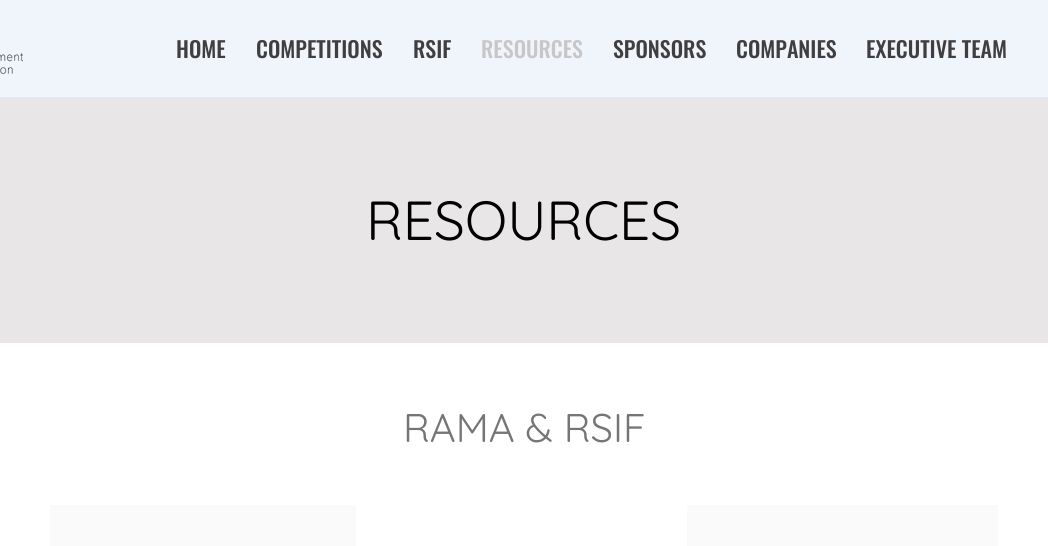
import math
import cairo

surface = cairo.ImageSurface(cairo.FORMAT_RGB24, 1048, 546)
ctx = cairo.Context(surface)
options = cairo.FontOptions()
options.set_hint_metrics(cairo.HINT_METRICS_OFF)
options.set_hint_style(cairo.HINT_STYLE_NONE)
ctx.set_font_options(options)
ctx.set_miter_limit(4)


def set_color(code):
    ctx.set_source_rgb(*(v / 255 for v in bytes.fromhex(code[-6:])))


def draw_text(x, y, s, family, size, color, bold=False, italic=False):
    ctx.select_font_face(family, cairo.FONT_SLANT_ITALIC if italic else cairo.FONT_SLANT_NORMAL, cairo.FONT_WEIGHT_BOLD if bold else cairo.FONT_WEIGHT_NORMAL)
    ctx.set_font_size(size)
    set_color(color)
    ctx.move_to(x, y)
    ctx.show_text(s)


def fill_rect(x, y, w, h, color):
    set_color(color)
    ctx.rectangle(x, y, w, h)
    ctx.fill()


def draw_image(path, x, y, w, h):
    ctx.save()
    ctx.set_source_surface(cairo.ImageSurface.create_from_png(path), x, y)
    ctx.rectangle(x, y, w, h)
    ctx.fill()
    ctx.restore()


set_color("#e8e6e6")
ctx.paint()
fill_rect(0, 0, 1048, 97, "#f0f4fb")
draw_text(176, 58, "HOME", "Oswald Medium", 22, "#3f3f3f")
draw_text(256, 58, "COMPETITIONS", "Oswald Medium", 22, "#3f3f3f")
draw_text(413, 58, "RSIF", "Oswald Medium", 22, "#3f3f3f")
draw_text(481, 58, "RESOURCES", "Oswald Medium", 22, "#c7c7c7")
draw_text(613, 58, "SPONSORS", "Oswald Medium", 22, "#3f3f3f")
draw_text(736, 58, "COMPANIES", "Oswald Medium", 22, "#3f3f3f")
draw_text(866, 58, "EXECUTIVE TEAM", "Oswald Medium", 22, "#3f3f3f")
draw_image("assets/img1.png", 0, 53, 23, 22)
draw_text(366, 240, "RESOURCES", "Quicksand", 55, "#000000")
fill_rect(0, 343, 1048, 203, "#ffffff")
draw_text(403, 442, "RAMA & RSIF", "Quicksand", 40, "#757575")
fill_rect(50, 505, 306, 41, "#fafafa")
fill_rect(687, 505, 311, 41, "#fafafa")
surface.write_to_png("output.png")
